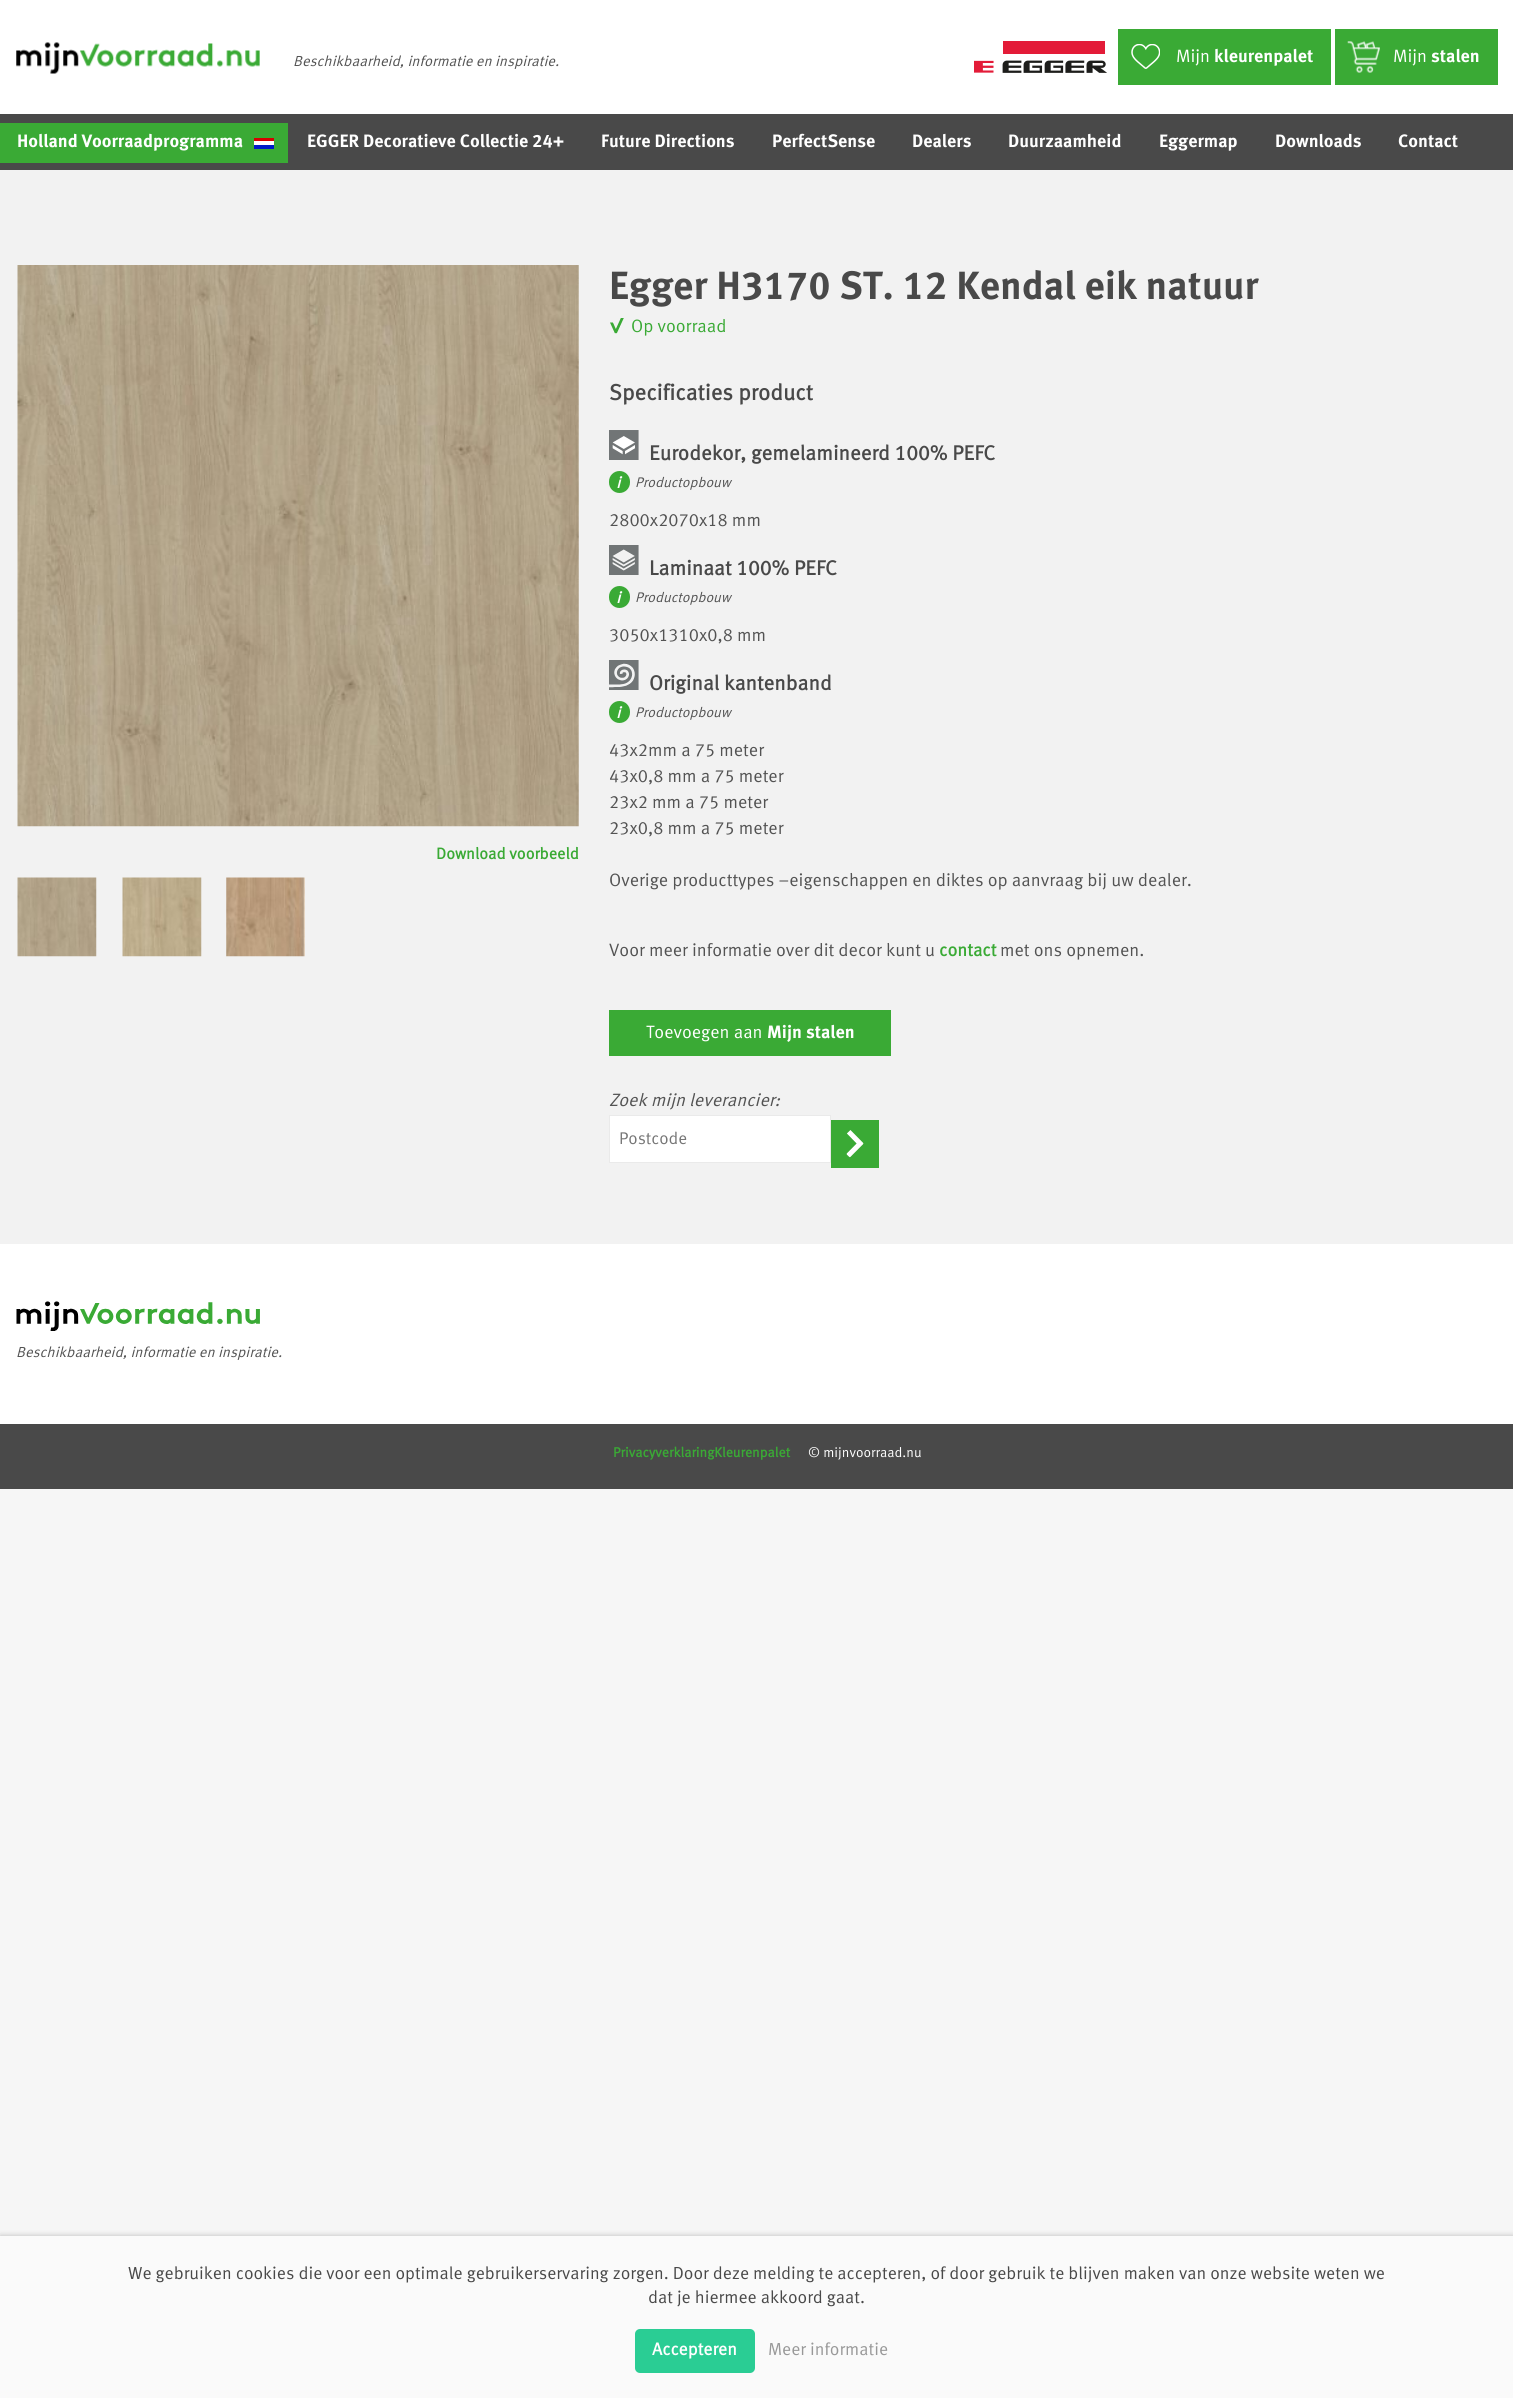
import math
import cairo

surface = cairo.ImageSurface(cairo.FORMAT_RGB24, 1513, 2398)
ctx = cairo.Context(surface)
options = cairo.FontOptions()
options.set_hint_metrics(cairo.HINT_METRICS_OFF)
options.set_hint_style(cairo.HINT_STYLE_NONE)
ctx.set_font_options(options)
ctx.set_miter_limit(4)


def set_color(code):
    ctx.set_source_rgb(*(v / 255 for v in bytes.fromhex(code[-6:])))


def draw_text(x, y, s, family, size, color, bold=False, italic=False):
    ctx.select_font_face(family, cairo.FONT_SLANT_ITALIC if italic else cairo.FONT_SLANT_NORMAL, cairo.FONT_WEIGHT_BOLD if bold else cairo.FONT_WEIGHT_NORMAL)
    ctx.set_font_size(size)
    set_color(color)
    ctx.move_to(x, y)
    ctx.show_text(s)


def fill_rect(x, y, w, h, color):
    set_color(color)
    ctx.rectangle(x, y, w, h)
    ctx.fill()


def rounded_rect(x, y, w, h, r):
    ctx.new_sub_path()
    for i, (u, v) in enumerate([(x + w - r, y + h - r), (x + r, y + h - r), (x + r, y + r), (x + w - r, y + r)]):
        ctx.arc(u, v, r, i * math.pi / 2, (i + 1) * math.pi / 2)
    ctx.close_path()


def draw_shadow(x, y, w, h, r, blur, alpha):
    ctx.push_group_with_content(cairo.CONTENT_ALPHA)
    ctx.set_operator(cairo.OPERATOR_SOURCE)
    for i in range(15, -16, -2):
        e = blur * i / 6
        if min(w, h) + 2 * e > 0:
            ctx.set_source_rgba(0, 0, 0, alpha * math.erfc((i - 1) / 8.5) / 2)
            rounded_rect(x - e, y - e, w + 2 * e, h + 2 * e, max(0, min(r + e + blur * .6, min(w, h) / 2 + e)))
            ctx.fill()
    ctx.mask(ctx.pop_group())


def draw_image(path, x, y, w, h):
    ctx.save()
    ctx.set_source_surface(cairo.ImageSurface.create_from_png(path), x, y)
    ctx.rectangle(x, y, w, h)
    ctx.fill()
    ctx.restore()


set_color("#f6f6f6")
ctx.paint()
fill_rect(0, 0, 1513, 114, "#ffffff")
draw_image("assets/img1.png", 16, 42, 244, 32)
draw_text(293, 66, "Beschikbaarheid, informatie en inspiratie.", "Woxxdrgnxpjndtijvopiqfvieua", 14.6, "#535353", italic=True)
draw_image("assets/img2.png", 974, 41, 133, 32)
fill_rect(1118, 29, 213, 56, "#3aaa35")
draw_image("assets/img3.png", 1131, 44, 29, 25)
draw_text(1176, 62, "Mijn", "Woxxdrgnxpjndtijvopiqfvieua", 17.9, "#ffffff")
draw_text(1214, 62, "kleurenpalet", "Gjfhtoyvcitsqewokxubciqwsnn", 17.9, "#ffffff", bold=True)
fill_rect(1335, 29, 163, 56, "#3aaa35")
draw_image("assets/img4.png", 1347, 41, 33, 32)
draw_text(1393, 62, "Mijn", "Woxxdrgnxpjndtijvopiqfvieua", 17.9, "#ffffff")
draw_text(1431, 62, "stalen", "Gjfhtoyvcitsqewokxubciqwsnn", 17.9, "#ffffff", bold=True)
fill_rect(0, 114, 1513, 56, "#494949")
fill_rect(0, 123, 288, 40, "#3aaa35")
fill_rect(254, 138, 20, 3, "#d70000")
fill_rect(254, 141, 20, 4, "#ffffff")
fill_rect(254, 145, 20, 4, "#001ac7")
draw_text(17, 147, "Holland Voorraadprogramma", "Gjfhtoyvcitsqewokxubciqwsnn", 17.9, "#ffffff", bold=True)
draw_text(307, 147, "EGGER Decoratieve Collectie 24+", "Gjfhtoyvcitsqewokxubciqwsnn", 17.9, "#ffffff", bold=True)
draw_text(601, 147, "Future Directions", "Gjfhtoyvcitsqewokxubciqwsnn", 17.9, "#ffffff", bold=True)
draw_text(772, 147, "PerfectSense", "Gjfhtoyvcitsqewokxubciqwsnn", 17.9, "#ffffff", bold=True)
draw_text(912, 147, "Dealers", "Gjfhtoyvcitsqewokxubciqwsnn", 17.9, "#ffffff", bold=True)
draw_text(1008, 147, "Duurzaamheid", "Gjfhtoyvcitsqewokxubciqwsnn", 17.9, "#ffffff", bold=True)
draw_text(1159, 147, "Eggermap", "Gjfhtoyvcitsqewokxubciqwsnn", 17.9, "#ffffff", bold=True)
draw_text(1275, 147, "Downloads", "Gjfhtoyvcitsqewokxubciqwsnn", 17.9, "#ffffff", bold=True)
draw_text(1398, 147, "Contact", "Gjfhtoyvcitsqewokxubciqwsnn", 17.9, "#ffffff", bold=True)
fill_rect(0, 170, 1513, 1074, "#f2f2f2")
draw_text(609, 299, "Egger H3170 ST. 12 Kendal eik natuur", "Gjfhtoyvcitsqewokxubciqwsnn", 39.3, "#494949", bold=True)
draw_image("assets/img5.png", 610, 318, 14, 16)
draw_text(631, 332, "Op voorraad", "Woxxdrgnxpjndtijvopiqfvieua", 17.9, "#3aaa35")
draw_image("assets/img6.png", 17, 265, 562, 562)
draw_text(436, 859, "Download voorbeeld", "Woxxdrgnxpjndtijvopiqfvieua", 16, "#3aaa35", bold=True)
draw_image("assets/img7.png", 17, 877, 80, 80)
draw_image("assets/img8.png", 122, 877, 80, 80)
draw_image("assets/img9.png", 226, 877, 79, 80)
draw_text(609, 400, "Specificaties product", "Woxxdrgnxpjndtijvopiqfvieua", 22.25, "#494949", bold=True)
draw_image("assets/img10.png", 609, 430, 30, 30)
draw_text(649, 460, "Eurodekor, gemelamineerd 100% PEFC", "Woxxdrgnxpjndtijvopiqfvieua", 20.6, "#494949", bold=True)
set_color("#3aaa35")
rounded_rect(609, 471, 21, 22, 10.5)
ctx.fill()
draw_text(616, 488, "i", "Woxxdrgnxpjndtijvopiqfvieua", 16, "#ffffff", bold=True, italic=True)
draw_text(635, 487, "Productopbouw", "Woxxdrgnxpjndtijvopiqfvieua", 14, "#535353", italic=True)
draw_text(609, 526, "2800x2070x18 mm", "Woxxdrgnxpjndtijvopiqfvieua", 17.9, "#535353")
draw_image("assets/img11.png", 609, 545, 30, 30)
draw_text(649, 575, "Laminaat 100% PEFC", "Woxxdrgnxpjndtijvopiqfvieua", 20.6, "#494949", bold=True)
set_color("#3aaa35")
rounded_rect(609, 586, 21, 22, 10.5)
ctx.fill()
draw_text(616, 603, "i", "Woxxdrgnxpjndtijvopiqfvieua", 16, "#ffffff", bold=True, italic=True)
draw_text(635, 602, "Productopbouw", "Woxxdrgnxpjndtijvopiqfvieua", 14, "#535353", italic=True)
draw_text(609, 641, "3050x1310x0,8 mm", "Woxxdrgnxpjndtijvopiqfvieua", 17.9, "#535353")
draw_image("assets/img12.png", 609, 660, 30, 30)
draw_text(649, 690, "Original kantenband", "Woxxdrgnxpjndtijvopiqfvieua", 20.6, "#494949", bold=True)
set_color("#3aaa35")
rounded_rect(609, 701, 21, 22, 10.5)
ctx.fill()
draw_text(616, 718, "i", "Woxxdrgnxpjndtijvopiqfvieua", 16, "#ffffff", bold=True, italic=True)
draw_text(635, 717, "Productopbouw", "Woxxdrgnxpjndtijvopiqfvieua", 14, "#535353", italic=True)
draw_text(609, 756, "43x2mm a 75 meter", "Woxxdrgnxpjndtijvopiqfvieua", 17.9, "#535353")
draw_text(609, 782, "43x0,8 mm a 75 meter", "Woxxdrgnxpjndtijvopiqfvieua", 17.9, "#535353")
draw_text(609, 808, "23x2 mm a 75 meter", "Woxxdrgnxpjndtijvopiqfvieua", 17.9, "#535353")
draw_text(609, 834, "23x0,8 mm a 75 meter", "Woxxdrgnxpjndtijvopiqfvieua", 17.9, "#535353")
draw_text(609, 886, "Overige producttypes –eigenschappen en diktes op aanvraag bij uw dealer.", "Woxxdrgnxpjndtijvopiqfvieua", 17.9, "#535353")
draw_text(609, 956, "Voor meer informatie over dit decor kunt u", "Woxxdrgnxpjndtijvopiqfvieua", 17.9, "#535353")
draw_text(939, 956, "contact", "Woxxdrgnxpjndtijvopiqfvieua", 17.9, "#3aaa35", bold=True)
draw_text(1000, 956, "met ons opnemen.", "Woxxdrgnxpjndtijvopiqfvieua", 17.9, "#535353")
fill_rect(609, 1010, 282, 46, "#3aaa35")
draw_text(646, 1038, "Toevoegen aan", "Woxxdrgnxpjndtijvopiqfvieua", 17.9, "#ffffff")
draw_text(767, 1038, "Mijn stalen", "Gjfhtoyvcitsqewokxubciqwsnn", 17.9, "#ffffff", bold=True)
draw_text(609, 1106, "Zoek mijn leverancier:", "Woxxdrgnxpjndtijvopiqfvieua", 17.9, "#535353", italic=True)
set_color("#ffffff")
ctx.rectangle(609.5, 1115.5, 221, 47)
ctx.fill_preserve()
set_color("#eaeaea")
ctx.set_line_width(1)
ctx.stroke()
draw_text(619, 1144, "Postcode", "Woxxdrgnxpjndtijvopiqfvieua", 17, "#757575")
fill_rect(831, 1120, 48, 48, "#3aaa35")
draw_image("assets/img13.png", 846, 1130, 18, 28)
fill_rect(0, 1244, 1513, 180, "#ffffff")
draw_image("assets/img14.png", 16, 1301, 244, 30)
draw_text(16, 1357, "Beschikbaarheid, informatie en inspiratie.", "Woxxdrgnxpjndtijvopiqfvieua", 14.6, "#535353", italic=True)
fill_rect(0, 1424, 1513, 65, "#494949")
draw_text(613, 1457, "PrivacyverklaringKleurenpalet", "Woxxdrgnxpjndtijvopiqfvieua", 13.75, "#3aaa35", bold=True)
draw_text(808, 1457, "© mijnvoorraad.nu", "Woxxdrgnxpjndtijvopiqfvieua", 13.75, "#ffffff")
set_color("#000000")
draw_shadow(0, 2236, 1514, 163, 0, 3, 0.25)
fill_rect(0, 2236, 1513, 162, "#fafafa")
draw_text(128, 2279, "We gebruiken cookies die voor een optimale gebruikerservaring zorgen. Door deze melding te accepteren, of door gebruik te blijven maken van onze website weten we", "Woxxdrgnxpjndtijvopiqfvieua", 17.5, "#494949")
draw_text(648, 2303, "dat je hiermee akkoord gaat.", "Woxxdrgnxpjndtijvopiqfvieua", 17.5, "#494949")
set_color("#2acd94")
rounded_rect(635, 2329, 120, 44, 5)
ctx.fill()
draw_text(652, 2355, "Accepteren", "Woxxdrgnxpjndtijvopiqfvieua", 17.5, "#ffffff", bold=True)
draw_text(768, 2355, "Meer informatie", "Woxxdrgnxpjndtijvopiqfvieua", 17.5, "#989898")
surface.write_to_png("output.png")
